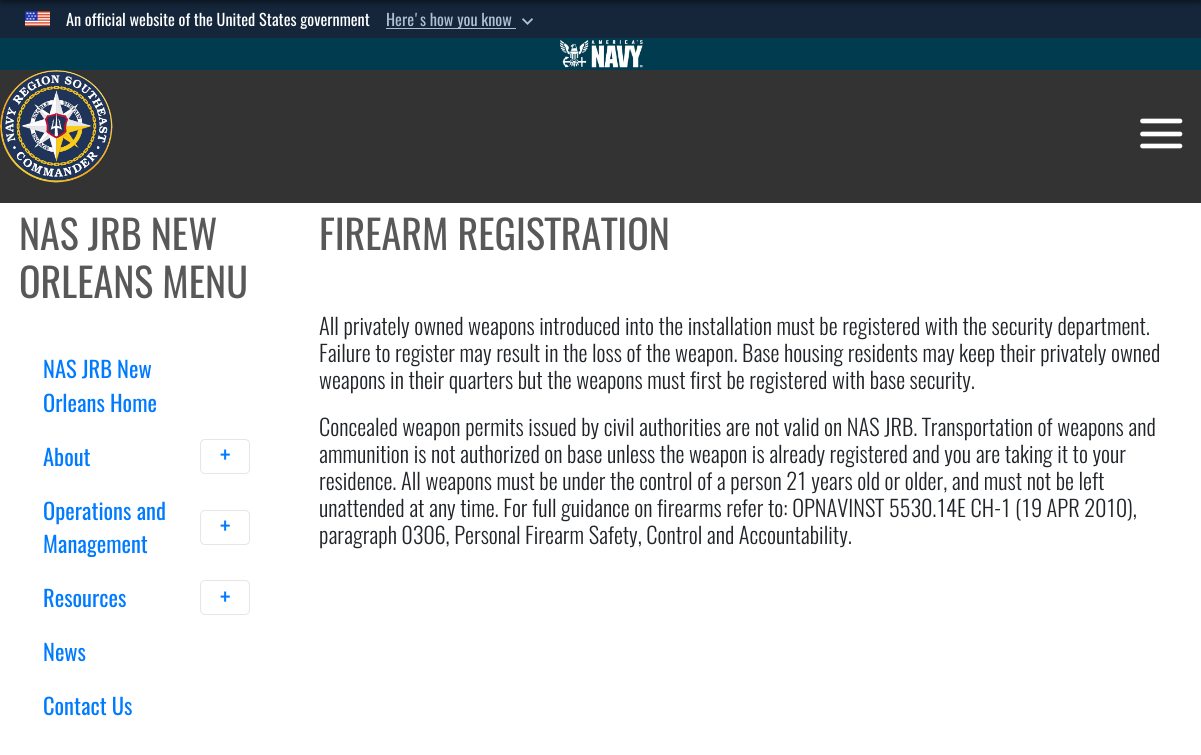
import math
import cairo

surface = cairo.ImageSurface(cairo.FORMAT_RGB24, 1201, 755)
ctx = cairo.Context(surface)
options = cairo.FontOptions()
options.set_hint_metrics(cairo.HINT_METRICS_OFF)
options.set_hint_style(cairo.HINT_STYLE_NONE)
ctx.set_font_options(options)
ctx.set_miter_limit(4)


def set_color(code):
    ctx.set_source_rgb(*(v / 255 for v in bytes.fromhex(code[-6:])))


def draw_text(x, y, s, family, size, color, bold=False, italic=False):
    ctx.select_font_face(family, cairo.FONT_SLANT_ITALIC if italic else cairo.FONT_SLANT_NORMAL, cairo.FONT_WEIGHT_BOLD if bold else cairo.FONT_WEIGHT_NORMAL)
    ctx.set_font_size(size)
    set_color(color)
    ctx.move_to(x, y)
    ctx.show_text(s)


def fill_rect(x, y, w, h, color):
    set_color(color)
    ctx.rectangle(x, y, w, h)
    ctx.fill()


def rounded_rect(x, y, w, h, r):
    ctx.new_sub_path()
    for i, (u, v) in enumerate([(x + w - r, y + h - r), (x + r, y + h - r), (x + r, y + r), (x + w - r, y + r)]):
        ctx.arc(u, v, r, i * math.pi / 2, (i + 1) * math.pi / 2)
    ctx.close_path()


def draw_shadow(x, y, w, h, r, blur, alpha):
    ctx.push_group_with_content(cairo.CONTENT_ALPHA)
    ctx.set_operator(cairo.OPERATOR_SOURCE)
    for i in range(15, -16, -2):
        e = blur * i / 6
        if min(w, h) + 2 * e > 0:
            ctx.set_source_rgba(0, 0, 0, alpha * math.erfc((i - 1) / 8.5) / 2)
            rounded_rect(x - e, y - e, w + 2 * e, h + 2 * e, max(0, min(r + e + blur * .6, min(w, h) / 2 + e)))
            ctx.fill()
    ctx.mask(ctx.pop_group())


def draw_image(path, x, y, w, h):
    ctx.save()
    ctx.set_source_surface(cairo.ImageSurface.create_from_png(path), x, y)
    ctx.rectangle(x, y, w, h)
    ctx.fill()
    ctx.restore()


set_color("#ffffff")
ctx.paint()
fill_rect(0, 0, 1201, 38, "#15263b")
draw_image("assets/img1.png", 25, 11, 25, 16)
draw_text(66, 26, "An official website of the United States government", "Oswald", 16.25, "#ffffff")
fill_rect(386, 28, 130, 1, "#aebfd4")
draw_text(386, 26, "Here's how you know", "Oswald", 16.25, "#aebfd4")
draw_image("assets/img2.png", 522, 18, 11, 7)
set_color("#020406")
draw_shadow(0, -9, 1201, 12, 0, 3, 0.5)
fill_rect(0, 38, 1201, 32, "#003b4f")
draw_image("assets/img3.png", 560, 40, 83, 28)
fill_rect(0, 70, 1201, 133, "#333333")
draw_image("assets/img4.png", 0, 70, 113, 113)
ctx.new_path()
ctx.move_to(1142.5, 121)
ctx.line_to(1180, 121)
ctx.move_to(1142.5, 134)
ctx.line_to(1180, 134)
ctx.move_to(1142.5, 146)
ctx.line_to(1180, 146)
set_color("#ffffff")
ctx.set_line_width(4.7)
ctx.set_line_cap(cairo.LINE_CAP_ROUND)
ctx.stroke()
draw_text(19, 250, "NAS JRB NEW", "Oswald", 40, "#585858")
draw_text(19, 298, "ORLEANS MENU", "Oswald", 40, "#585858")
draw_text(43, 378, "NAS JRB New", "Oswald", 22.5, "#007bff")
draw_text(43, 412, "Orleans Home", "Oswald", 22.5, "#007bff")
draw_text(43, 466, "About", "Oswald", 22.5, "#007bff")
rounded_rect(200.5, 439.5, 49, 34, 4.5)
set_color("#e6e6e6")
ctx.set_line_width(1)
ctx.set_line_cap(cairo.LINE_CAP_BUTT)
ctx.stroke()
draw_text(220, 465, "+", "Oswald", 25, "#007bff")
draw_text(43, 520, "Operations and", "Oswald", 22.5, "#007bff")
rounded_rect(200.5, 510.5, 49, 34, 4.5)
set_color("#e6e6e6")
ctx.stroke()
draw_text(220, 536, "+", "Oswald", 25, "#007bff")
draw_text(43, 553, "Management", "Oswald", 22.5, "#007bff")
draw_text(43, 607, "Resources", "Oswald", 22.5, "#007bff")
rounded_rect(200.5, 580.5, 49, 34, 4.5)
set_color("#e6e6e6")
ctx.stroke()
draw_text(220, 607, "+", "Oswald", 25, "#007bff")
draw_text(43, 661, "News", "Oswald", 22.5, "#007bff")
draw_text(43, 715, "Contact Us", "Oswald", 22.5, "#007bff")
draw_text(319, 250, "FIREARM REGISTRATION", "Oswald", 40, "#585858")
draw_text(319, 335, "All privately owned weapons introduced into the installation must be registered with the security department.", "Oswald Light", 22.5, "#212529")
draw_text(319, 362, "Failure to register may result in the loss of the weapon. Base housing residents may keep their privately owned", "Oswald Light", 22.5, "#212529")
draw_text(319, 389, "weapons in their quarters but the weapons must first be registered with base security.", "Oswald Light", 22.5, "#212529")
draw_text(319, 436, "Concealed weapon permits issued by civil authorities are not valid on NAS JRB. Transportation of weapons and", "Oswald Light", 22.5, "#212529")
draw_text(319, 463, "ammunition is not authorized on base unless the weapon is already registered and you are taking it to your", "Oswald Light", 22.5, "#212529")
draw_text(319, 490, "residence. All weapons must be under the control of a person 21 years old or older, and must not be left", "Oswald Light", 22.5, "#212529")
draw_text(319, 517, "unattended at any time. For full guidance on firearms refer to: OPNAVINST 5530.14E CH-1 (19 APR 2010),", "Oswald Light", 22.5, "#212529")
draw_text(319, 544, "paragraph 0306, Personal Firearm Safety, Control and Accountability.", "Oswald Light", 22.5, "#212529")
surface.write_to_png("output.png")
